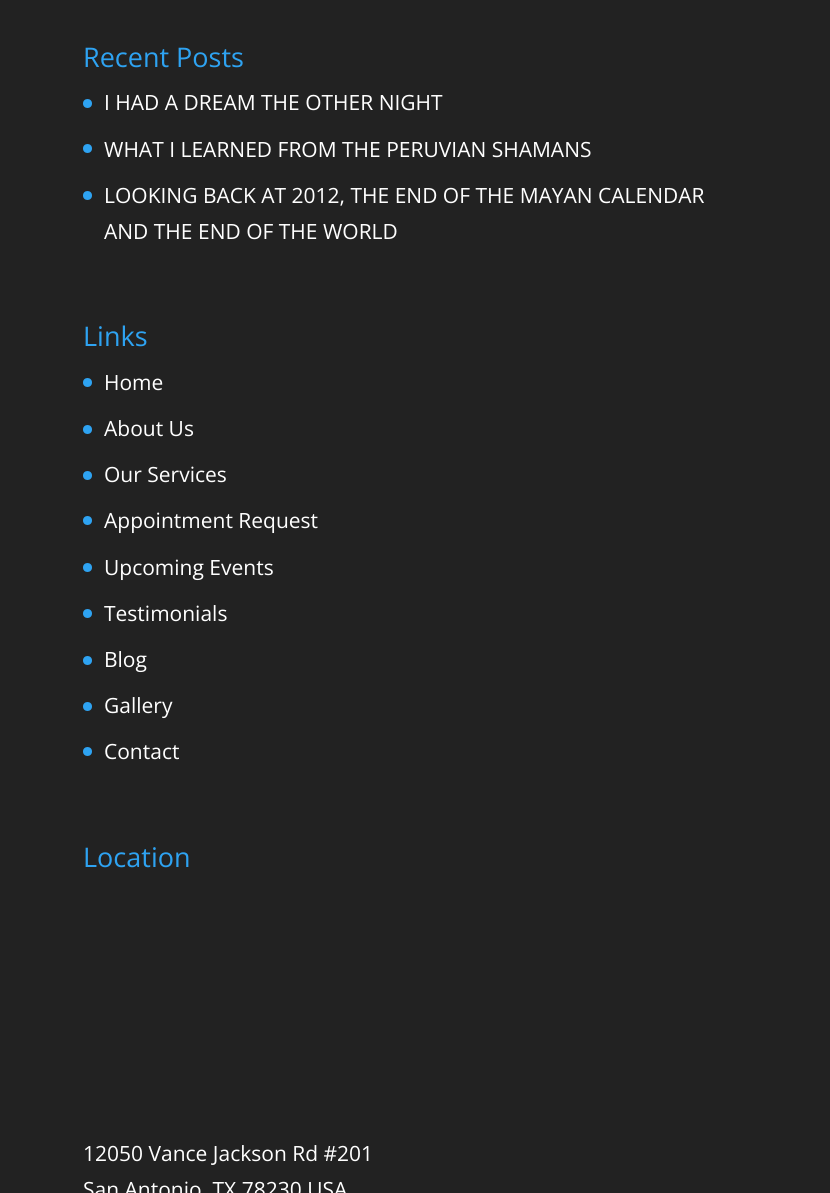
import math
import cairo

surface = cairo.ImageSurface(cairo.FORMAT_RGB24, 830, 1193)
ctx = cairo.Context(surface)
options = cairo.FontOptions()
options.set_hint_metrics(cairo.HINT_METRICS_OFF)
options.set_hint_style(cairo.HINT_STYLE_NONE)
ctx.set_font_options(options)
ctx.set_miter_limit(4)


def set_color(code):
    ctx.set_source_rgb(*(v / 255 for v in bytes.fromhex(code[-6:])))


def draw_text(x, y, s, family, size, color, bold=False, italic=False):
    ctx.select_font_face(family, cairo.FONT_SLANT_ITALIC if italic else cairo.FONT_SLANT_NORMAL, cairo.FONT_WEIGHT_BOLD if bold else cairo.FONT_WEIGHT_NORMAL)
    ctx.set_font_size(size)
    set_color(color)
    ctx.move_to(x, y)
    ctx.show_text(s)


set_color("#222222")
ctx.paint()
draw_text(83, 67, "Recent Posts", "Open Sans", 27, "#2ea3f2")
ctx.new_path()
ctx.arc(87.5, 103.5, 4.5, 0, 2 * math.pi)
ctx.fill()
draw_text(104, 110, "I HAD A DREAM THE OTHER NIGHT", "Open Sans", 21, "#ffffff")
set_color("#2ea3f2")
ctx.new_path()
ctx.arc(87.5, 148.5, 4.5, 0, 2 * math.pi)
ctx.fill()
draw_text(104, 157, "WHAT I LEARNED FROM THE PERUVIAN SHAMANS", "Open Sans", 21, "#ffffff")
set_color("#2ea3f2")
ctx.new_path()
ctx.arc(87.5, 195.5, 4.5, 0, 2 * math.pi)
ctx.fill()
draw_text(104, 203, "LOOKING BACK AT 2012, THE END OF THE MAYAN CALENDAR", "Open Sans", 21, "#ffffff")
draw_text(104, 239, "AND THE END OF THE WORLD", "Open Sans", 21, "#ffffff")
draw_text(83, 346, "Links", "Open Sans", 27, "#2ea3f2")
ctx.new_path()
ctx.arc(87.5, 382.5, 4.5, 0, 2 * math.pi)
ctx.fill()
draw_text(104, 390, "Home", "Open Sans", 21, "#ffffff")
set_color("#2ea3f2")
ctx.new_path()
ctx.arc(87.5, 429.5, 4.5, 0, 2 * math.pi)
ctx.fill()
draw_text(104, 436, "About Us", "Open Sans", 21, "#ffffff")
set_color("#2ea3f2")
ctx.new_path()
ctx.arc(87.5, 475.5, 4.5, 0, 2 * math.pi)
ctx.fill()
draw_text(104, 482, "Our Services", "Open Sans", 21, "#ffffff")
set_color("#2ea3f2")
ctx.new_path()
ctx.arc(87.5, 520.5, 4.5, 0, 2 * math.pi)
ctx.fill()
draw_text(104, 528, "Appointment Request", "Open Sans", 21, "#ffffff")
set_color("#2ea3f2")
ctx.new_path()
ctx.arc(87.5, 567.5, 4.5, 0, 2 * math.pi)
ctx.fill()
draw_text(104, 575, "Upcoming Events", "Open Sans", 21, "#ffffff")
set_color("#2ea3f2")
ctx.new_path()
ctx.arc(87.5, 613.5, 4.5, 0, 2 * math.pi)
ctx.fill()
draw_text(104, 621, "Testimonials", "Open Sans", 21, "#ffffff")
set_color("#2ea3f2")
ctx.new_path()
ctx.arc(87.5, 660.5, 4.5, 0, 2 * math.pi)
ctx.fill()
draw_text(104, 667, "Blog", "Open Sans", 21, "#ffffff")
set_color("#2ea3f2")
ctx.new_path()
ctx.arc(87.5, 706.5, 4.5, 0, 2 * math.pi)
ctx.fill()
draw_text(104, 713, "Gallery", "Open Sans", 21, "#ffffff")
set_color("#2ea3f2")
ctx.new_path()
ctx.arc(87.5, 751.5, 4.5, 0, 2 * math.pi)
ctx.fill()
draw_text(104, 759, "Contact", "Open Sans", 21, "#ffffff")
draw_text(83, 867, "Location", "Open Sans", 27, "#2ea3f2")
draw_text(83, 1161, "12050 Vance Jackson Rd #201", "Open Sans", 21, "#ffffff")
draw_text(83, 1197, "San Antonio, TX 78230 USA", "Open Sans", 21, "#ffffff")
surface.write_to_png("output.png")
